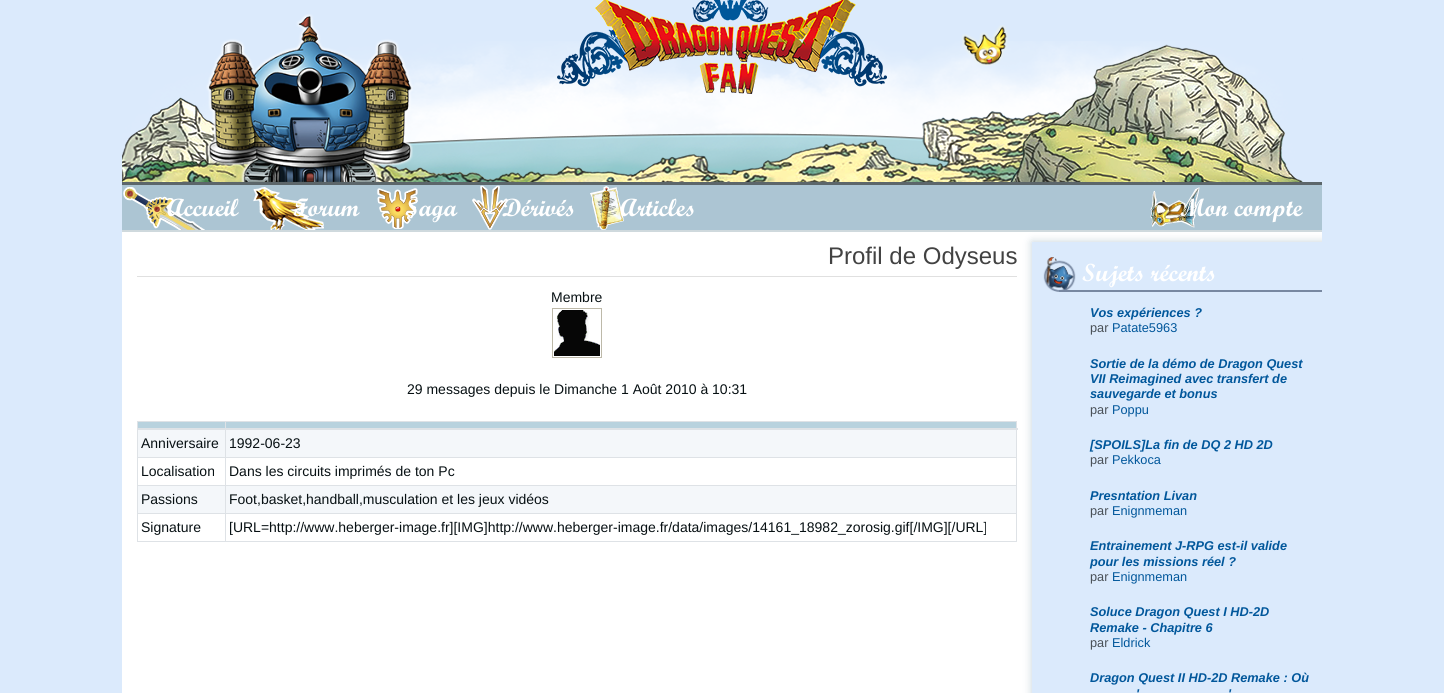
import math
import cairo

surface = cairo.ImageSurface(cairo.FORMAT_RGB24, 1444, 693)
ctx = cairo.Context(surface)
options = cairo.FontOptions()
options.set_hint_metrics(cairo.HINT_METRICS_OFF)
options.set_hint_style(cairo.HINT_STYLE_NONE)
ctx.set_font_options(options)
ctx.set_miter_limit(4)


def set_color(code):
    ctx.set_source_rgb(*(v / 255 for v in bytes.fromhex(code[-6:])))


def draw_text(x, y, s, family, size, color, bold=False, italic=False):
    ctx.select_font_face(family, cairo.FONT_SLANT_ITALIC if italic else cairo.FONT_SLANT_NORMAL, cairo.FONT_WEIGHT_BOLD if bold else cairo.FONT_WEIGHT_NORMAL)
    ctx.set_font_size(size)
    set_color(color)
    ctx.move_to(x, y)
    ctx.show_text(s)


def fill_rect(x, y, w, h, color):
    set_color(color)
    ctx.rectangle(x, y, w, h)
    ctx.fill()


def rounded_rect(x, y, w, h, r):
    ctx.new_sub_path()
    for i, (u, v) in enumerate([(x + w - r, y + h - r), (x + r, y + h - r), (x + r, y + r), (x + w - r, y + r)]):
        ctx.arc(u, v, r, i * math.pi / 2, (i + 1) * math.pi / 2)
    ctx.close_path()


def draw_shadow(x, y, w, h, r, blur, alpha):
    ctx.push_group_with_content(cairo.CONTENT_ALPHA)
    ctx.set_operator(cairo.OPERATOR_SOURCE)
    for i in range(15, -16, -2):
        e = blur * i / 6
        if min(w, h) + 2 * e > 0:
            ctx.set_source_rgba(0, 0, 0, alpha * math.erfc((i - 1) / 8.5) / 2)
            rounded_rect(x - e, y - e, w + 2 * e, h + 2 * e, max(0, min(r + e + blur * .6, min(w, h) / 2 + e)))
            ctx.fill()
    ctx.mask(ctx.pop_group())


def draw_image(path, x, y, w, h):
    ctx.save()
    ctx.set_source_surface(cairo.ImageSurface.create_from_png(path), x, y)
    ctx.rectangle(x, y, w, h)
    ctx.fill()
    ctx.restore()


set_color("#dbeafc")
ctx.paint()
draw_image("assets/img4.png", 122, 41, 1181, 141)
draw_image("assets/img1.png", 206, 14, 207, 168)
draw_image("assets/img2.png", 557, 0, 330, 94)
draw_image("assets/img3.png", 962, 25, 46, 41)
fill_rect(122, 185, 1200, 45, "#acc5d3")
fill_rect(122, 182, 1200, 3, "#5c666a")
fill_rect(122, 230, 1200, 2, "#cfd9dd")
draw_image("assets/img5.png", 123, 187, 82, 43)
draw_text(167, 216, "Accueil", "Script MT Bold", 25, "#ffffff", bold=True)
draw_image("assets/img6.png", 253, 187, 71, 43)
draw_text(293, 216, "Forum", "Script MT Bold", 25, "#ffffff", bold=True)
draw_image("assets/img7.png", 377, 188, 41, 41)
draw_text(405, 216, "Saga", "Script MT Bold", 25, "#ffffff", bold=True)
draw_image("assets/img8.png", 472, 185, 36, 45)
draw_text(502, 216, "Dérivés", "Script MT Bold", 25, "#ffffff", bold=True)
draw_image("assets/img9.png", 590, 186, 34, 44)
draw_text(620, 216, "Articles", "Script MT Bold", 25, "#ffffff", bold=True)
draw_image("assets/img10.png", 1150, 187, 50, 41)
draw_text(1180, 216, "Mon compte", "Script MT Bold", 25, "#ffffff", bold=True)
fill_rect(122, 232, 1200, 461, "#ffffff")
fill_rect(137, 276, 880, 1, "#e0e0e0")
draw_text(828, 264, "Profil de Odyseus", "Liberation Sans", 24, "#424242")
draw_text(551, 302, "Membre", "Liberation Sans", 14, "#071013")
draw_image("assets/img11.png", 552, 308, 50, 50)
draw_text(407, 394, "29 messages depuis le Dimanche 1 Août 2010 à 10:31", "Liberation Sans", 14, "#071013")
fill_rect(137, 421, 880, 1, "#dee2e6")
fill_rect(138, 422, 879, 6, "#b8d2de")
fill_rect(1016, 421, 1, 121, "#dee2e6")
fill_rect(137, 541, 880, 1, "#dee2e6")
fill_rect(137, 421, 1, 121, "#dee2e6")
fill_rect(138, 430, 878, 27, "#f4f7fa")
fill_rect(225, 457, 792, 1, "#dee2e6")
fill_rect(225, 485, 792, 1, "#dee2e6")
fill_rect(138, 486, 878, 27, "#f4f7fa")
fill_rect(225, 513, 792, 1, "#dee2e6")
fill_rect(225, 513, 1, 29, "#dee2e6")
fill_rect(137, 513, 89, 1, "#dee2e6")
fill_rect(225, 485, 1, 29, "#dee2e6")
fill_rect(137, 485, 89, 1, "#dee2e6")
fill_rect(225, 457, 1, 29, "#dee2e6")
fill_rect(137, 457, 89, 1, "#dee2e6")
fill_rect(225, 421, 1, 37, "#dee2e6")
ctx.save()
ctx.rectangle(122, 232, 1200, 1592)
ctx.clip()
set_color("#3b6984")
draw_shadow(1032, 242, 300, 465, 0, 4.5, 0.3)
ctx.restore()
fill_rect(137, 428, 881, 2, "#dee2e6")
draw_text(141, 448, "Anniversaire", "Liberation Sans", 14, "#071013")
draw_text(229, 448, "1992-06-23", "Liberation Sans", 14, "#071013")
draw_text(141, 476, "Localisation", "Liberation Sans", 14, "#071013")
draw_text(229, 476, "Dans les circuits imprimés de ton Pc", "Liberation Sans", 14, "#071013")
draw_text(141, 504, "Passions", "Liberation Sans", 14, "#071013")
draw_text(229, 504, "Foot,basket,handball,musculation et les jeux vidéos", "Liberation Sans", 14, "#071013")
draw_text(141, 532, "Signature", "Liberation Sans", 14, "#071013")
draw_text(229, 532, "[URL=http://www.heberger-image.fr][IMG]http://www.heberger-image.fr/data/images/14161_18982_zorosig.gif[/IMG][/URL]", "Liberation Sans", 14, "#071013")
fill_rect(1032, 242, 290, 451, "#dbeafc")
fill_rect(1059, 290, 263, 2, "#7888a1")
draw_image("assets/img12.png", 1043, 257, 33, 35)
draw_text(1082, 281, "Sujets récents", "Script MT Bold", 25, "#ffffff", bold=True)
draw_text(1090, 317, "Vos expériences ?", "Liberation Sans", 12.75, "#01579b", bold=True, italic=True)
draw_text(1090, 332, "par", "Liberation Sans", 12.75, "#495057")
draw_text(1112, 332, "Patate5963", "Liberation Sans", 12.75, "#01579b")
draw_text(1090, 368, "Sortie de la démo de Dragon Quest", "Liberation Sans", 12.75, "#01579b", bold=True, italic=True)
draw_text(1090, 383, "VII Reimagined avec transfert de", "Liberation Sans", 12.75, "#01579b", bold=True, italic=True)
draw_text(1090, 398, "sauvegarde et bonus", "Liberation Sans", 12.75, "#01579b", bold=True, italic=True)
draw_text(1090, 414, "par", "Liberation Sans", 12.75, "#495057")
draw_text(1112, 414, "Poppu", "Liberation Sans", 12.75, "#01579b")
draw_text(1090, 449, "[SPOILS]La fin de DQ 2 HD 2D", "Liberation Sans", 12.75, "#01579b", bold=True, italic=True)
draw_text(1090, 464, "par", "Liberation Sans", 12.75, "#495057")
draw_text(1112, 464, "Pekkoca", "Liberation Sans", 12.75, "#01579b")
draw_text(1090, 500, "Presntation Livan", "Liberation Sans", 12.75, "#01579b", bold=True, italic=True)
draw_text(1090, 515, "par", "Liberation Sans", 12.75, "#495057")
draw_text(1112, 515, "Enignmeman", "Liberation Sans", 12.75, "#01579b")
draw_text(1090, 550, "Entrainement J-RPG est-il valide", "Liberation Sans", 12.75, "#01579b", bold=True, italic=True)
draw_text(1090, 566, "pour les missions réel ?", "Liberation Sans", 12.75, "#01579b", bold=True, italic=True)
draw_text(1090, 581, "par", "Liberation Sans", 12.75, "#495057")
draw_text(1112, 581, "Enignmeman", "Liberation Sans", 12.75, "#01579b")
draw_text(1090, 616, "Soluce Dragon Quest I HD-2D", "Liberation Sans", 12.75, "#01579b", bold=True, italic=True)
draw_text(1090, 632, "Remake - Chapitre 6", "Liberation Sans", 12.75, "#01579b", bold=True, italic=True)
draw_text(1090, 647, "par", "Liberation Sans", 12.75, "#495057")
draw_text(1112, 647, "Eldrick", "Liberation Sans", 12.75, "#01579b")
draw_text(1090, 682, "Dragon Quest II HD-2D Remake : Où", "Liberation Sans", 12.75, "#01579b", bold=True, italic=True)
draw_text(1136, 698, "'", "Liberation Sans", 12.75, "#01579b", bold=True, italic=True)
draw_text(1228, 698, "'", "Liberation Sans", 12.75, "#01579b", bold=True, italic=True)
surface.write_to_png("output.png")
